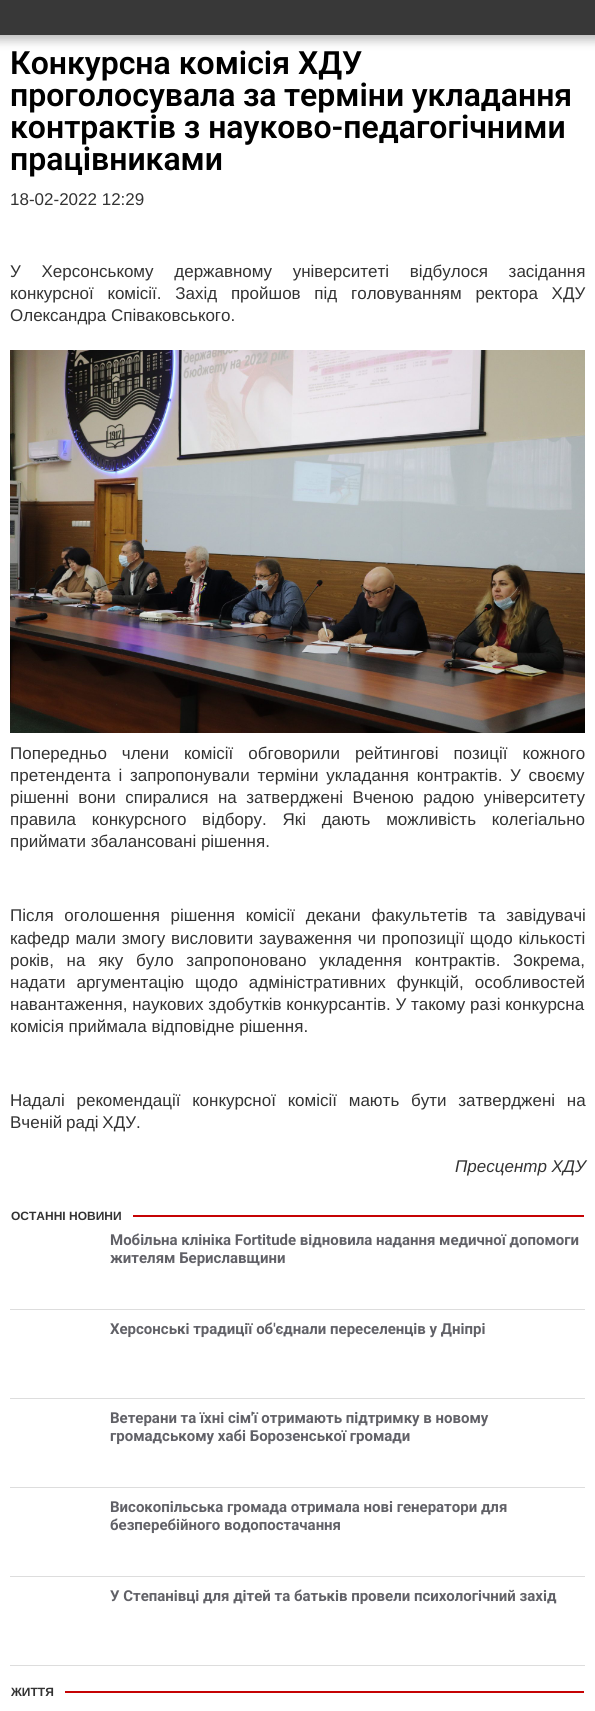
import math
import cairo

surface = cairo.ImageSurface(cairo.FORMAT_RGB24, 595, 1711)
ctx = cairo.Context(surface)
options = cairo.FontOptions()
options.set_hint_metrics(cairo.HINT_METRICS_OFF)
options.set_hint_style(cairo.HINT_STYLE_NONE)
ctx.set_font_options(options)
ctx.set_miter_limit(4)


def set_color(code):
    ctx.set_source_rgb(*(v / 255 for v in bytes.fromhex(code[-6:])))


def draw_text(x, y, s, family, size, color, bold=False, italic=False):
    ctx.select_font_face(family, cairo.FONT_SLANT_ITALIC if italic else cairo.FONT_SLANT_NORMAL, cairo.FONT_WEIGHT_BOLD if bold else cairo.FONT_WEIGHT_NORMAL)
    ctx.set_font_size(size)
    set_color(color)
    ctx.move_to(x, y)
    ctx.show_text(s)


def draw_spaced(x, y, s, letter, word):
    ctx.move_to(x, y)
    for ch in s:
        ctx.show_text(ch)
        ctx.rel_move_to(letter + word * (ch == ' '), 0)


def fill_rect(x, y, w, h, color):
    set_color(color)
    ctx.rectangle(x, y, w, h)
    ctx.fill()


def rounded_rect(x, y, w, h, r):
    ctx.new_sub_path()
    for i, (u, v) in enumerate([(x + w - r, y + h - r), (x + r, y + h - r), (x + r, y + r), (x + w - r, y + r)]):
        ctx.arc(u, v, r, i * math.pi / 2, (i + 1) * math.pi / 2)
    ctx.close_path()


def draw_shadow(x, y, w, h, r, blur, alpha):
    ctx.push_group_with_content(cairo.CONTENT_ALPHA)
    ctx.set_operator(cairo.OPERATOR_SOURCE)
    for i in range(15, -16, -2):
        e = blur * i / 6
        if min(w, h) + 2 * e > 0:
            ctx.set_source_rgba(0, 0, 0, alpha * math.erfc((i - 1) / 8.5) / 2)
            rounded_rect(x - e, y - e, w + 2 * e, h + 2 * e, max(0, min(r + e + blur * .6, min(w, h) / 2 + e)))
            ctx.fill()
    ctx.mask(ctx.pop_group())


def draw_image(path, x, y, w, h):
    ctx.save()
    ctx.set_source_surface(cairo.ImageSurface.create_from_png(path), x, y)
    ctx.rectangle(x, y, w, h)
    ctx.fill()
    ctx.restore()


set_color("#ffffff")
ctx.paint()
set_color("#1a1a1a")
draw_shadow(-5, -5, 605, 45, 0, 5, 0.3)
fill_rect(0, 0, 595, 35, "#383838")
draw_text(10, 74, "Конкурсна комісія ХДУ", "Roboto SemiBold", 32, "#000000")
draw_spaced(10, 106, "проголосувала за терміни укладання", 0, -0.5)
draw_text(10, 138, "контрактів з науково-педагогічними", "Roboto SemiBold", 32, "#000000")
draw_text(10, 170, "працівниками", "Roboto SemiBold", 32, "#000000")
draw_text(10, 205, "18-02-2022 12:29", "Liberation Sans", 17, "#333333")
draw_spaced(10, 277, "У Херсонському державному університеті відбулося засідання", 0, 16)
draw_spaced(10, 299, "конкурсної комісії. Захід пройшов під головуванням ректора ХДУ", 0, 9)
draw_text(10, 321, "Олександра Співаковського.", "Liberation Sans", 17, "#333333")
draw_image("assets/img1.png", 10, 350, 575, 383)
draw_spaced(10, 759, "Попередньо члени комісії обговорили рейтингові позиції кожного", 0, 10.25)
draw_spaced(10, 781, "претендента і запропонували терміни укладання контрактів. У своєму", 0, 3)
draw_spaced(10, 803, "рішенні вони спиралися на затверджені Вченою радою університету", 0, 4.75)
draw_spaced(10, 825, "правила конкурсного відбору. Які дають можливість колегіально", 0, 11)
draw_text(10, 847, "приймати збалансовані рішення.", "Liberation Sans", 17, "#333333")
draw_spaced(10, 921, "Після оголошення рішення комісії декани факультетів та завідувачі", 0, 6)
draw_spaced(10, 944, "кафедр мали змогу висловити зауваження чи пропозиції щодо кількості", 0, 1)
draw_spaced(10, 966, "років, на яку було запропоновано укладення контрактів. Зокрема,", 0, 8)
draw_spaced(10, 988, "надати аргументацію щодо адміністративних функцій, особливостей", 0, 6.25)
draw_text(10, 1010, "навантаження, наукових здобутків конкурсантів. У такому разі конкурсна", "Liberation Sans", 17, "#333333")
draw_text(10, 1032, "комісія приймала відповідне рішення.", "Liberation Sans", 17, "#333333")
draw_spaced(10, 1106, "Надалі рекомендації конкурсної комісії мають бути затверджені на", 0, 7)
draw_spaced(10, 1128, "Вченій раді ХДУ.", 0, -1)
draw_text(455, 1172, "Пресцентр ХДУ", "Liberation Sans", 17, "#333333", italic=True)
draw_text(11, 1220, "ОСТАННІ НОВИНИ", "Liberation Sans", 12, "#333333", bold=True)
fill_rect(133, 1215, 451, 2, "#c60304")
draw_text(110, 1245, "Мобільна клініка Fortitude відновила надання медичної допомоги", "Roboto", 15, "#616167", bold=True)
draw_text(110, 1263, "жителям Бериславщини", "Roboto", 15, "#616167", bold=True)
fill_rect(10, 1309, 575, 1, "#dddddd")
draw_text(110, 1334, "Херсонські традиції об'єднали переселенців у Дніпрі", "Roboto", 15, "#616167", bold=True)
fill_rect(10, 1398, 575, 1, "#dddddd")
draw_text(110, 1423, "Ветерани та їхні сім'ї отримають підтримку в новому", "Roboto", 15, "#616167", bold=True)
draw_text(110, 1441, "громадському хабі Борозенської громади", "Roboto", 15, "#616167", bold=True)
fill_rect(10, 1487, 575, 1, "#dddddd")
draw_text(110, 1512, "Високопільська громада отримала нові генератори для", "Roboto", 15, "#616167", bold=True)
draw_text(110, 1530, "безперебійного водопостачання", "Roboto", 15, "#616167", bold=True)
fill_rect(10, 1576, 575, 1, "#dddddd")
draw_text(110, 1601, "У Степанівці для дітей та батьків провели психологічний захід", "Roboto", 15, "#616167", bold=True)
fill_rect(10, 1665, 575, 1, "#dddddd")
draw_text(11, 1696, "ЖИТТЯ", "Liberation Sans", 12, "#333333", bold=True)
fill_rect(65, 1691, 519, 2, "#c60304")
surface.write_to_png("output.png")
